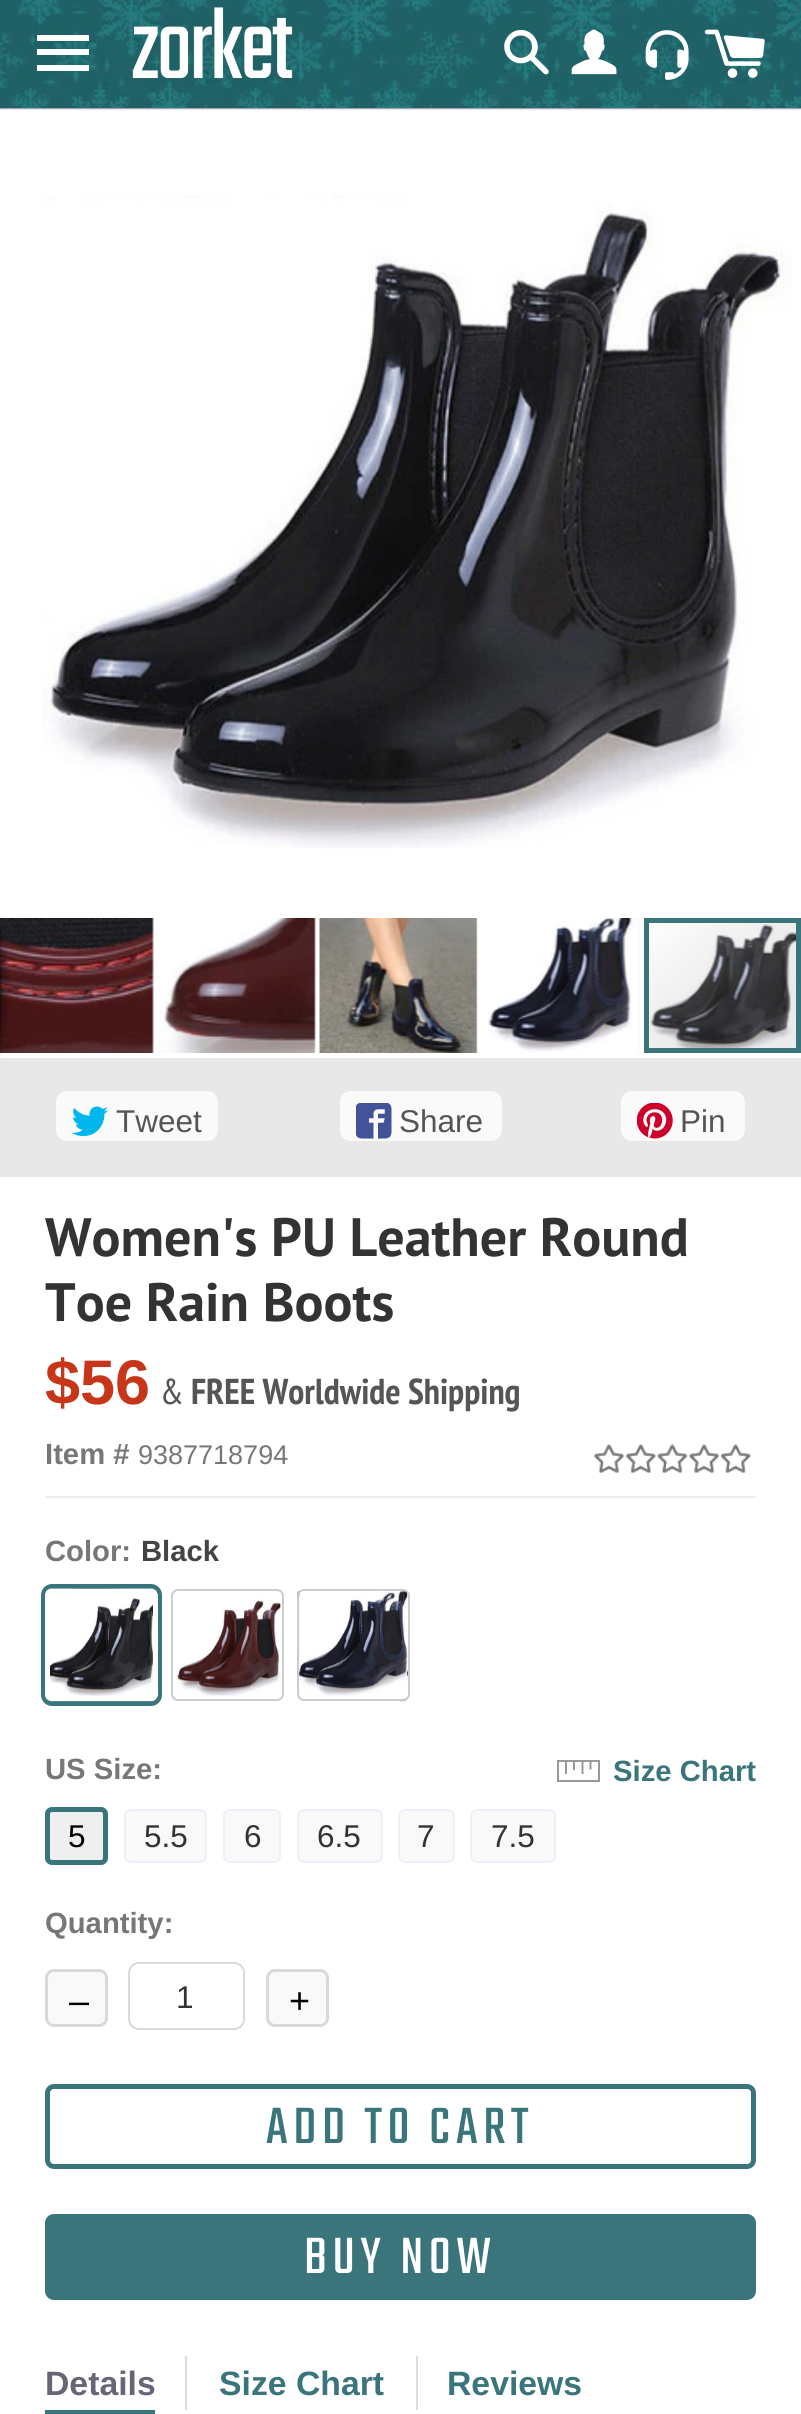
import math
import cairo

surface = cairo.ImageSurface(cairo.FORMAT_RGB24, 801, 2414)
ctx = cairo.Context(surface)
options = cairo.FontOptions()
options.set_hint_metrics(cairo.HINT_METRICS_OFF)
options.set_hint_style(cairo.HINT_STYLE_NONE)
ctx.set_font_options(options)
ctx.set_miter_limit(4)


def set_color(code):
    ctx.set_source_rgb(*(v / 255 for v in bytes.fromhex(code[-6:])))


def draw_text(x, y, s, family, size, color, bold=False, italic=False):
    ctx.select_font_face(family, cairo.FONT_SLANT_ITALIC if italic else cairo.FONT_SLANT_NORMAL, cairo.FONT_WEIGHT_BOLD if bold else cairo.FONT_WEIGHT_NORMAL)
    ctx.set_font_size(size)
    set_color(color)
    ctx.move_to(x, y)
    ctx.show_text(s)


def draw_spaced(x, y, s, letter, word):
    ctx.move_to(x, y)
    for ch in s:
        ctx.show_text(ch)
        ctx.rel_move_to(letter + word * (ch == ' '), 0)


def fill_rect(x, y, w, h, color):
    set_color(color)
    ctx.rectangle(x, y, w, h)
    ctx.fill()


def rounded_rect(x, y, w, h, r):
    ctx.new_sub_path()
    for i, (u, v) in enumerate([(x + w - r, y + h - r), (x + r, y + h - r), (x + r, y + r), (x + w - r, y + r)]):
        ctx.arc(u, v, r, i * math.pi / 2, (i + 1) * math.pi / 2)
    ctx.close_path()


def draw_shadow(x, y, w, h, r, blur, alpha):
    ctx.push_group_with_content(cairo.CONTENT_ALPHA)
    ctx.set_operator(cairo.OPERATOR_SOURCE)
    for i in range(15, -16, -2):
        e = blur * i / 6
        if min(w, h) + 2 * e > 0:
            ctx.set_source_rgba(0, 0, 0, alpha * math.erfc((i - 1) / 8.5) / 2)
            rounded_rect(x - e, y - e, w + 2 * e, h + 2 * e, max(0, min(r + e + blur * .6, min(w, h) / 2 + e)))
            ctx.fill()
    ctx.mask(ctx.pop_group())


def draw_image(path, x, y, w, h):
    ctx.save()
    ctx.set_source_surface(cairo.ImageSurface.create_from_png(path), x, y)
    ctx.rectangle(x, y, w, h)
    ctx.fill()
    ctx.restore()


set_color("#ffffff")
ctx.paint()
set_color("#000000")
draw_shadow(-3, -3, 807, 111, 0, 1, 1)
draw_image("assets/img1.png", 0, 0, 801, 108)
set_color("#ffffff")
ctx.new_path()
ctx.move_to(37, 35)
ctx.line_to(89, 35)
ctx.line_to(89, 41)
ctx.line_to(37, 41)
ctx.close_path()
ctx.move_to(37, 49)
ctx.line_to(89, 49)
ctx.line_to(89, 55)
ctx.line_to(37, 55)
ctx.close_path()
ctx.move_to(37, 65)
ctx.line_to(89, 65)
ctx.line_to(89, 71)
ctx.line_to(37, 71)
ctx.close_path()
ctx.fill()
draw_image("assets/img2.png", 132, 7, 161, 72)
draw_image("assets/img3.png", 504, 29, 45, 46)
draw_image("assets/img4.png", 571, 29, 46, 46)
draw_image("assets/img5.png", 645, 30, 44, 50)
draw_image("assets/img6.png", 704, 29, 61, 49)
draw_image("assets/img7.png", 42, 195, 750, 654)
draw_image("assets/img8.png", 0, 918, 154, 135)
gradient = cairo.RadialGradient(0, 0, 0, 0, 0, 1)
gradient.set_matrix(cairo.Matrix(1 / 11, 0, 0, 1 / 72, -1 * 0 / 11, -1 * 986 / 72))
gradient.add_color_stop_rgba(0, 0, 0, 0, 0.4)
gradient.add_color_stop_rgba(1, 0, 0, 0, 0)
ctx.set_source(gradient)
ctx.rectangle(0, 927, 10, 127)
ctx.fill()
gradient = cairo.LinearGradient(1.1, 914, 1.1, 1058)
gradient.add_color_stop_rgba(0, 0, 0, 0, 0)
gradient.add_color_stop_rgba(0.25, 0, 0, 0, 0.2)
gradient.add_color_stop_rgba(0.75, 0, 0, 0, 0.3)
gradient.add_color_stop_rgba(1, 0, 0, 0, 0)
ctx.set_source(gradient)
ctx.rectangle(0, 914, 2, 144)
ctx.fill()
draw_image("assets/img9.png", 158, 918, 158, 135)
fill_rect(476, 918, 1, 135, "#e5e5e5")
draw_image("assets/img10.png", 319, 918, 159, 135)
fill_rect(638, 918, 1, 135, "#e5e5e5")
draw_image("assets/img11.png", 482, 918, 157, 135)
draw_image("assets/img12.png", 649, 923, 147, 125)
ctx.rectangle(646.5, 920.5, 152, 130)
set_color("#39757b")
ctx.set_line_width(5)
ctx.stroke()
fill_rect(0, 1058, 801, 119, "#e8e8e8")
set_color("#fafafa")
rounded_rect(56, 1091, 162, 50, 11)
ctx.fill()
draw_image("assets/img13.png", 72, 1106, 36, 31)
draw_text(116, 1132, "Tweet", "Liberation Sans", 31.5, "#555555")
set_color("#fafafa")
rounded_rect(340, 1091, 162, 50, 11)
ctx.fill()
draw_image("assets/img14.png", 356, 1103, 36, 36)
draw_text(399, 1132, "Share", "Liberation Sans", 31.5, "#555555")
set_color("#fafafa")
rounded_rect(621, 1091, 124, 50, 11)
ctx.fill()
draw_image("assets/img15.png", 637, 1103, 36, 36)
draw_text(680, 1132, "Pin", "Liberation Sans", 31.5, "#555555")
draw_text(45, 1256, "Women's PU Leather Round", "PT Sans", 54, "#333333", bold=True)
draw_text(45, 1321, "Toe Rain Boots", "PT Sans", 54, "#333333", bold=True)
draw_text(45, 1404, "$56", "Liberation Sans", 63, "#c83619", bold=True)
draw_text(160, 1404, "&", "PT Sans Narrow", 36, "#555555")
draw_text(191, 1404, "FREE Worldwide Shipping", "PT Sans Narrow", 36, "#555555", bold=True)
draw_text(45, 1464, "Item #", "Liberation Sans", 29.25, "#777777", bold=True)
draw_text(138, 1464, "9387718794", "Liberation Sans", 27, "#777777")
draw_image("assets/img16.png", 594, 1444, 157, 29)
fill_rect(45, 1496, 711, 2, "#eeeeee")
draw_text(45, 1561, "Color:", "Liberation Sans", 29.25, "#777777", bold=True)
draw_text(141, 1561, "Black", "Liberation Sans", 29.25, "#444444", bold=True)
rounded_rect(43.5, 1586.5, 116, 117, 8.5)
set_color("#39757b")
ctx.stroke()
draw_image("assets/img17.png", 45, 1588, 113, 114)
rounded_rect(47.5, 1591.5, 108, 107, 4.5)
set_color("#ffffff")
ctx.stroke()
draw_image("assets/img18.png", 171, 1589, 113, 112)
rounded_rect(172, 1590, 111, 110, 6)
set_color("#cccccc")
ctx.set_line_width(2)
ctx.stroke()
draw_image("assets/img19.png", 297, 1589, 113, 113)
rounded_rect(298, 1590, 111, 110, 6)
ctx.stroke()
draw_text(45, 1779, "US Size:", "Liberation Sans", 29.25, "#777777", bold=True)
draw_text(613, 1781, "Size Chart", "Liberation Sans", 29.25, "#39757b", bold=True)
fill_rect(565, 1760, 2, 14, "#999999")
fill_rect(573, 1760, 2, 10, "#999999")
ctx.save()
ctx.rectangle(556, 1760, 45, 22)
ctx.clip()
ctx.new_path()
ctx.move_to(582.5, 1774)
ctx.line_to(582.5, 1759.5)
ctx.move_to(590.5, 1769.5)
ctx.line_to(590.5, 1759.5)
ctx.stroke()
ctx.restore()
ctx.rectangle(558, 1761, 41, 20)
ctx.stroke()
set_color("#efefef")
rounded_rect(47.5, 1809.5, 58, 53, 4.5)
ctx.fill_preserve()
set_color("#39757b")
ctx.set_line_width(5)
ctx.stroke()
draw_text(68, 1847, "5", "Liberation Sans", 31.5, "#000000")
set_color("#f9f9f9")
rounded_rect(125, 1810, 81, 52, 6)
ctx.fill_preserve()
set_color("#efeffa")
ctx.set_line_width(2)
ctx.stroke()
draw_text(144, 1847, "5.5", "Liberation Sans", 31.5, "#333333")
set_color("#f9f9f9")
rounded_rect(224, 1810, 56, 52, 6)
ctx.fill_preserve()
set_color("#efeffa")
ctx.stroke()
draw_text(244, 1847, "6", "Liberation Sans", 31.5, "#333333")
set_color("#f9f9f9")
rounded_rect(298, 1810, 84, 52, 6)
ctx.fill_preserve()
set_color("#efeffa")
ctx.stroke()
draw_text(317, 1847, "6.5", "Liberation Sans", 31.5, "#333333")
set_color("#f9f9f9")
rounded_rect(399, 1810, 55, 52, 6)
ctx.fill_preserve()
set_color("#efeffa")
ctx.stroke()
draw_text(417, 1847, "7", "Liberation Sans", 31.5, "#333333")
set_color("#f9f9f9")
rounded_rect(471, 1810, 84, 52, 6)
ctx.fill_preserve()
set_color("#efeffa")
ctx.stroke()
draw_text(491, 1847, "7.5", "Liberation Sans", 31.5, "#333333")
draw_text(45, 1933, "Quantity:", "Liberation Sans", 29.25, "#777777", bold=True)
set_color("#f9f9f9")
rounded_rect(46.5, 1970.5, 60, 55, 7.5)
ctx.fill_preserve()
set_color("#d9d9d9")
ctx.set_line_width(3)
ctx.stroke()
draw_text(69, 2013, "–", "Liberation Sans", 36, "#000000")
rounded_rect(129, 1963, 115, 66, 10)
set_color("#d9d9d9")
ctx.set_line_width(2)
ctx.stroke()
set_color("#ffffff")
rounded_rect(131, 1964, 112, 63, 9)
ctx.fill()
ctx.set_font_size(31.5)
set_color("#333333")
draw_spaced(176, 2008, "1", 3, 0)
set_color("#f9f9f9")
rounded_rect(267.5, 1970.5, 60, 55, 7.5)
ctx.fill_preserve()
set_color("#d9d9d9")
ctx.set_line_width(3)
ctx.stroke()
draw_text(289, 2013, "+", "Liberation Sans", 36, "#000000")
rounded_rect(47.5, 2086.5, 706, 80, 6.5)
set_color("#39757b")
ctx.set_line_width(5)
ctx.stroke()
ctx.select_font_face("Teko")
ctx.set_font_size(56.25)
draw_spaced(266, 2143, "ADD TO CART", 5.6, 0)
rounded_rect(47.5, 2216.5, 706, 81, 6.5)
ctx.fill_preserve()
ctx.stroke()
set_color("#ffffff")
draw_spaced(304, 2273, "BUY NOW", 5.6, 0)
fill_rect(45, 2410, 110, 4, "#39757b")
draw_text(45, 2395, "Details", "Liberation Sans", 33.75, "#666677", bold=True)
fill_rect(416, 2356, 2, 54, "#dddddd")
fill_rect(185, 2356, 2, 54, "#dddddd")
draw_text(219, 2395, "Size Chart", "Liberation Sans", 33.75, "#39757b", bold=True)
draw_text(447, 2395, "Reviews", "Liberation Sans", 33.75, "#39757b", bold=True)
surface.write_to_png("output.png")
